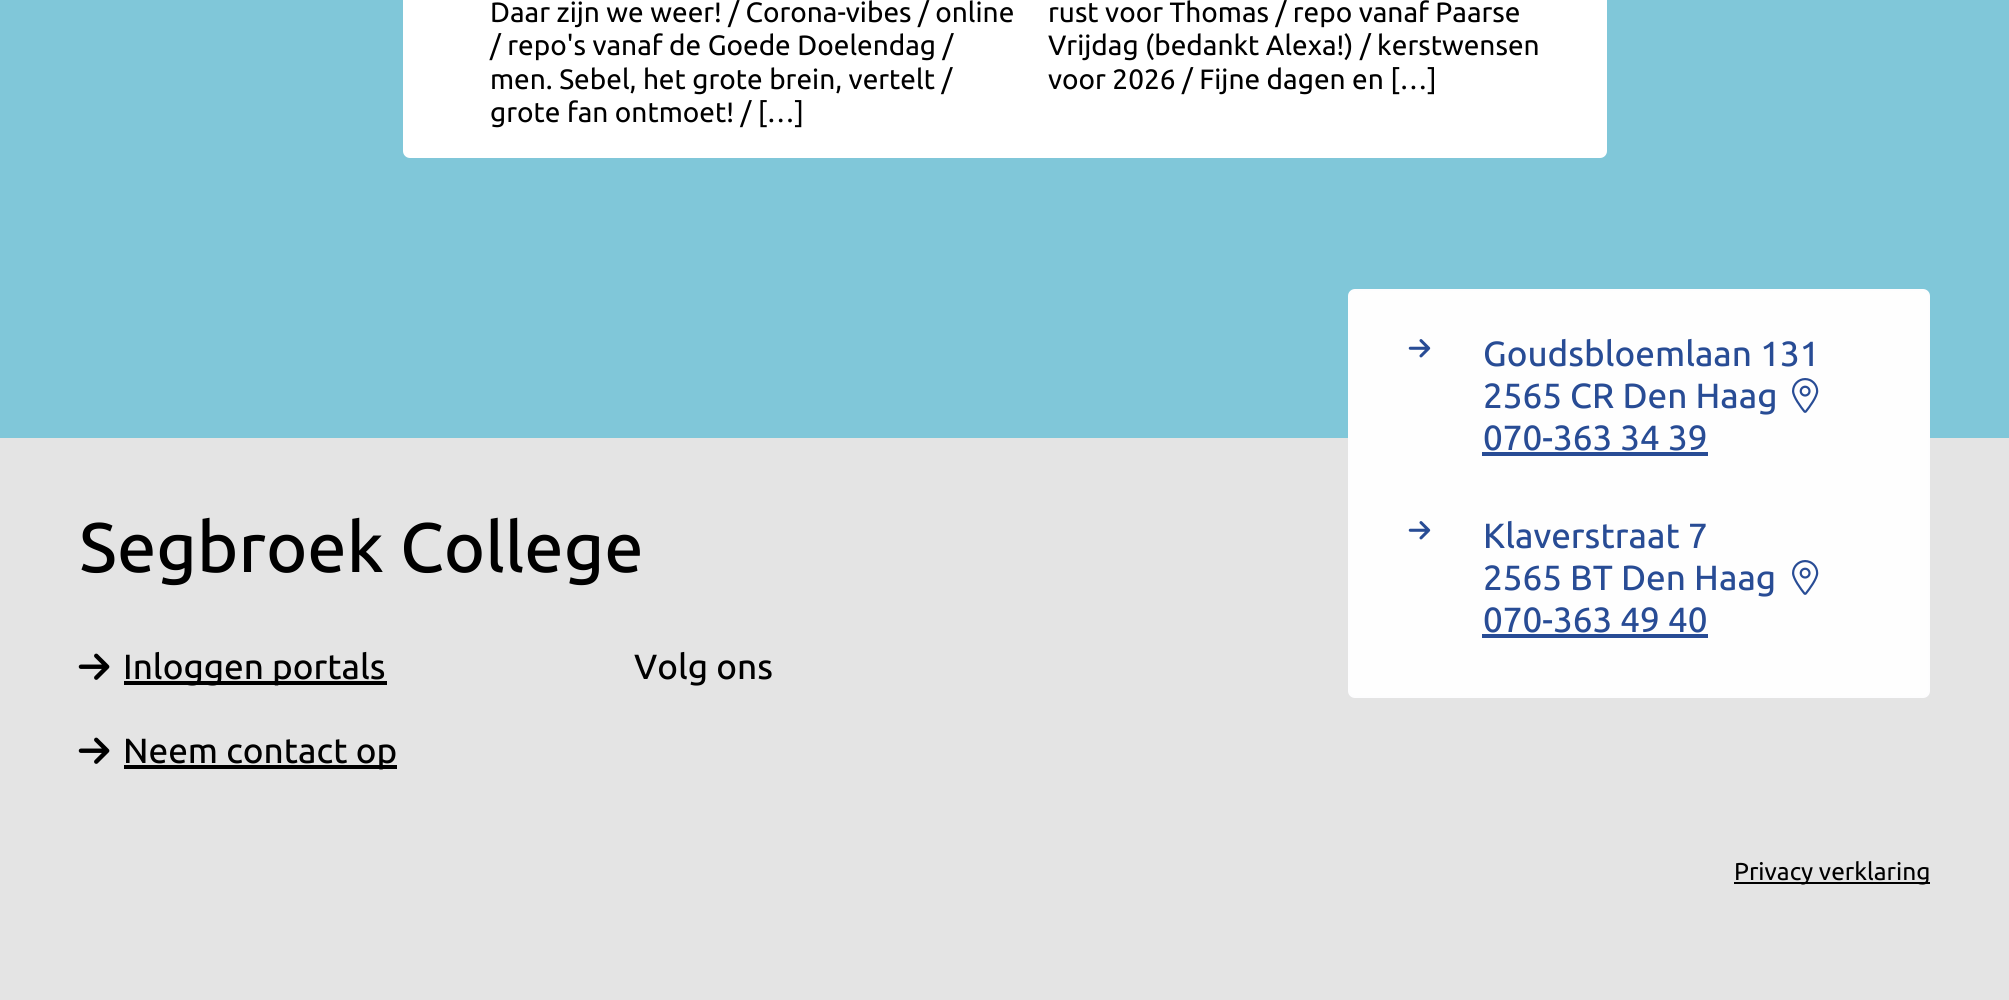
import math
import cairo

surface = cairo.ImageSurface(cairo.FORMAT_RGB24, 2009, 1000)
ctx = cairo.Context(surface)
options = cairo.FontOptions()
options.set_hint_metrics(cairo.HINT_METRICS_OFF)
options.set_hint_style(cairo.HINT_STYLE_NONE)
ctx.set_font_options(options)
ctx.set_miter_limit(4)


def set_color(code):
    ctx.set_source_rgb(*(v / 255 for v in bytes.fromhex(code[-6:])))


def draw_text(x, y, s, family, size, color, bold=False, italic=False):
    ctx.select_font_face(family, cairo.FONT_SLANT_ITALIC if italic else cairo.FONT_SLANT_NORMAL, cairo.FONT_WEIGHT_BOLD if bold else cairo.FONT_WEIGHT_NORMAL)
    ctx.set_font_size(size)
    set_color(color)
    ctx.move_to(x, y)
    ctx.show_text(s)


def fill_rect(x, y, w, h, color):
    set_color(color)
    ctx.rectangle(x, y, w, h)
    ctx.fill()


def rounded_rect(x, y, w, h, r):
    ctx.new_sub_path()
    for i, (u, v) in enumerate([(x + w - r, y + h - r), (x + r, y + h - r), (x + r, y + r), (x + w - r, y + r)]):
        ctx.arc(u, v, r, i * math.pi / 2, (i + 1) * math.pi / 2)
    ctx.close_path()


def draw_image(path, x, y, w, h):
    ctx.save()
    ctx.set_source_surface(cairo.ImageSurface.create_from_png(path), x, y)
    ctx.rectangle(x, y, w, h)
    ctx.fill()
    ctx.restore()


set_color("#e4e4e4")
ctx.paint()
fill_rect(0, 0, 2009, 438, "#80c7d9")
set_color("#ffffff")
rounded_rect(403, -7, 1204, 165, 7)
ctx.fill()
draw_text(490, 22, "Daar zijn we weer! / Corona-vibes / online", "Ubuntu", 28, "#000000")
draw_text(490, 55, "/ repo's vanaf de Goede Doelendag /", "Ubuntu", 28, "#000000")
draw_text(490, 89, "men. Sebel, het grote brein, vertelt /", "Ubuntu", 28, "#000000")
draw_text(490, 122, "grote fan ontmoet! / […]", "Ubuntu", 28, "#000000")
draw_text(1048, 22, "rust voor Thomas / repo vanaf Paarse", "Ubuntu", 28, "#000000")
draw_text(1048, 55, "Vrijdag (bedankt Alexa!) / kerstwensen", "Ubuntu", 28, "#000000")
draw_text(1048, 89, "voor 2026 / Fijne dagen en […]", "Ubuntu", 28, "#000000")
draw_text(79, 572, "Segbroek College", "Ubuntu Medium", 70, "#000000")
draw_image("assets/img1.png", 78, 653, 32, 27)
fill_rect(124, 681, 263, 4, "#000000")
draw_text(123, 679, "Inloggen portals", "Ubuntu Medium", 35, "#000000")
draw_image("assets/img1.png", 78, 737, 32, 27)
fill_rect(124, 765, 273, 4, "#000000")
draw_text(123, 763, "Neem contact op", "Ubuntu Medium", 35, "#000000")
draw_text(634, 679, "Volg ons", "Ubuntu Medium", 35, "#000000")
set_color("#fefefe")
rounded_rect(1349, 290, 580, 407, 6)
ctx.fill_preserve()
set_color("#fdfdfe")
ctx.stroke()
draw_image("assets/img2.png", 1408, 339, 23, 19)
draw_text(1483, 366, "Goudsbloemlaan 131", "Ubuntu Medium", 35, "#284c95")
draw_text(1483, 408, "2565 CR Den Haag", "Ubuntu Medium", 35, "#284c95")
draw_image("assets/img3.png", 1792, 378, 27, 35)
draw_text(1483, 450, "070-363 34 39", "Ubuntu Medium", 35, "#284c95")
fill_rect(1482, 452, 226, 4, "#284c95")
draw_image("assets/img2.png", 1408, 521, 23, 19)
draw_text(1483, 548, "Klaverstraat 7", "Ubuntu Medium", 35, "#284c95")
draw_text(1483, 590, "2565 BT Den Haag", "Ubuntu Medium", 35, "#284c95")
draw_image("assets/img3.png", 1792, 560, 27, 35)
draw_text(1483, 632, "070-363 49 40", "Ubuntu Medium", 35, "#284c95")
fill_rect(1482, 634, 226, 4, "#284c95")
fill_rect(1734, 882, 196, 2, "#000000")
draw_text(1734, 880, "Privacy verklaring", "Ubuntu", 24.5, "#000000")
surface.write_to_png("output.png")
